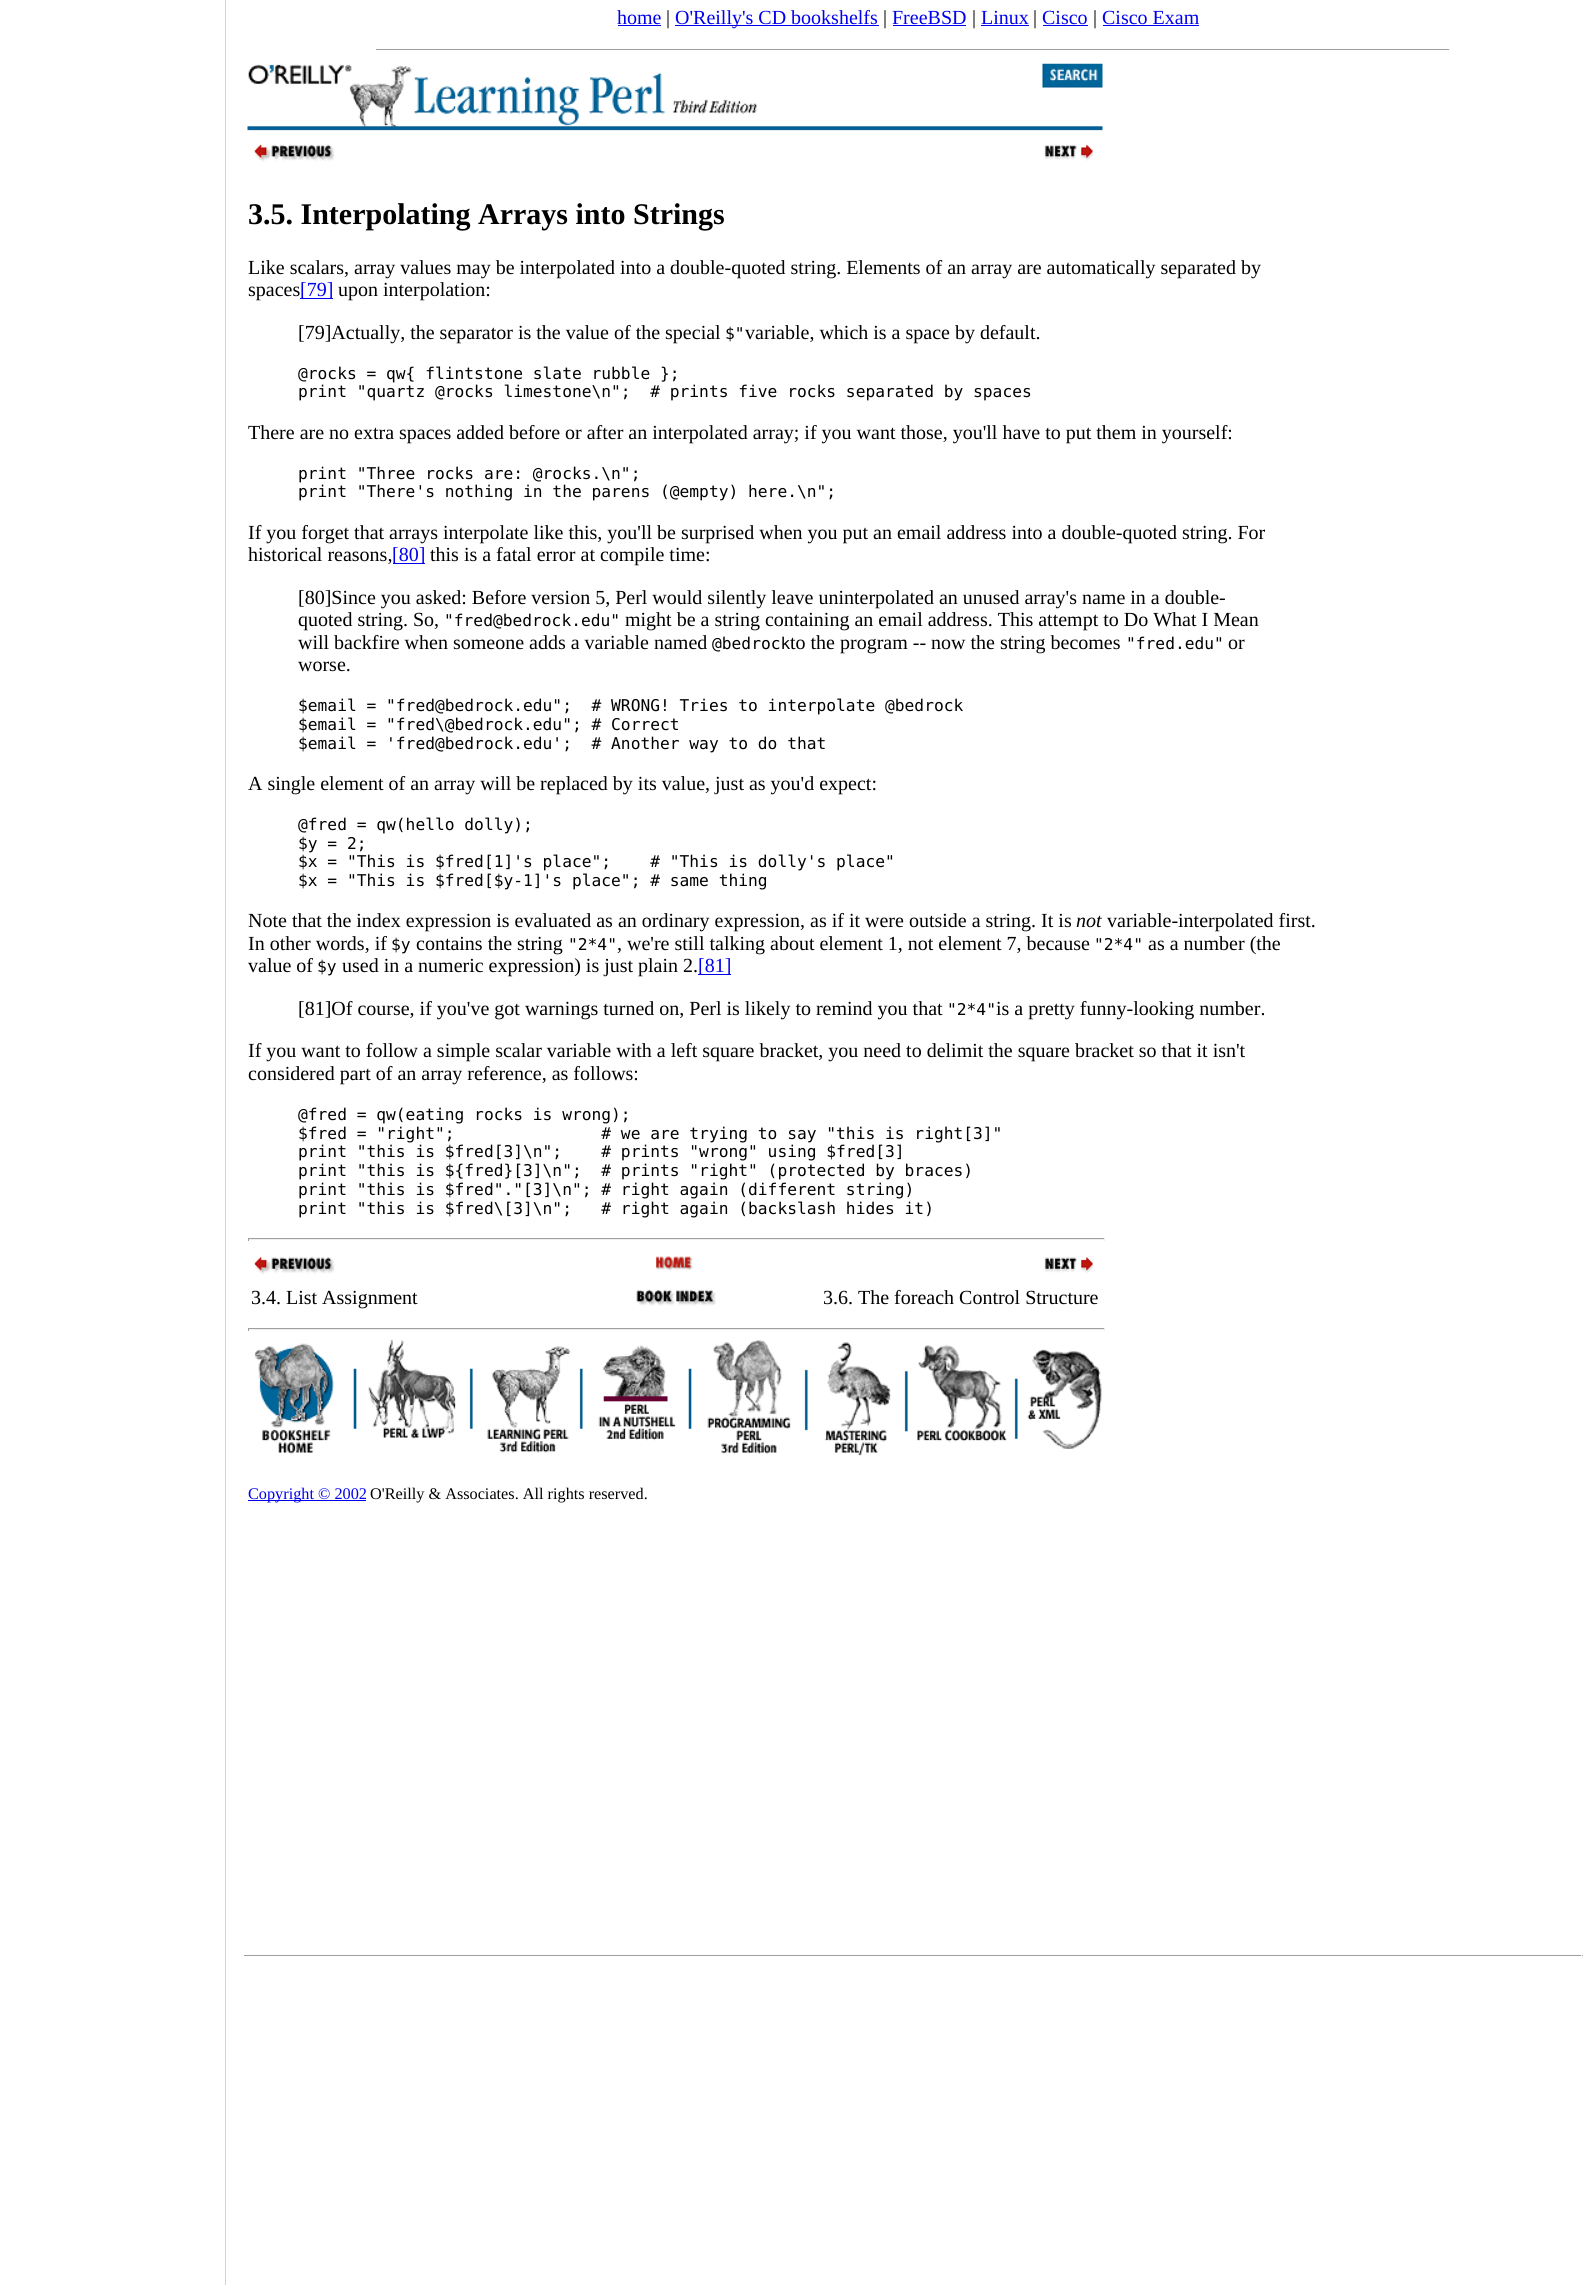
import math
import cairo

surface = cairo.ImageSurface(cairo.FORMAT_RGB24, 1588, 2285)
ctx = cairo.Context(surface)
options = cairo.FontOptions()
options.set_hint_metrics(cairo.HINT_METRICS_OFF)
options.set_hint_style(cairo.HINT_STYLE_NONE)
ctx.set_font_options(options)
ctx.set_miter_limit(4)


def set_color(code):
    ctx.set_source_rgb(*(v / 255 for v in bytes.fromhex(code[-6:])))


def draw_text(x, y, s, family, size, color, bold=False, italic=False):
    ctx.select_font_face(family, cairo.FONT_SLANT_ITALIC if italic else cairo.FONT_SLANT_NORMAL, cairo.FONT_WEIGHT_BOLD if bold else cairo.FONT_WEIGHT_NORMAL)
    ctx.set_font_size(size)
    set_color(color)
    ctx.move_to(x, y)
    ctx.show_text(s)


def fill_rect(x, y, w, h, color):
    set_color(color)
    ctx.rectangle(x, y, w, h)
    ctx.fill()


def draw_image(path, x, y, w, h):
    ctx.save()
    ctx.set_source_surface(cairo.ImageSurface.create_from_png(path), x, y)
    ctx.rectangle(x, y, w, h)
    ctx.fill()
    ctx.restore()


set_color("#ffffff")
ctx.paint()
fill_rect(225, 0, 1, 2285, "#d3d3d3")
draw_text(617, 24, "home", "Liberation Serif", 20, "#0000ee")
fill_rect(618, 25, 43, 1, "#0000ee")
draw_text(666, 24, "|", "Liberation Serif", 20, "#000000")
fill_rect(675, 25, 204, 1, "#0000ee")
draw_text(675, 24, "O'Reilly's CD bookshelfs", "Liberation Serif", 20, "#0000ee")
draw_text(883, 24, "|", "Liberation Serif", 20, "#000000")
draw_text(892, 24, "FreeBSD", "Liberation Serif", 20, "#0000ee")
fill_rect(893, 25, 73, 1, "#0000ee")
draw_text(972, 24, "|", "Liberation Serif", 20, "#000000")
draw_text(981, 24, "Linux", "Liberation Serif", 20, "#0000ee")
fill_rect(981, 25, 48, 1, "#0000ee")
draw_text(1033, 24, "|", "Liberation Serif", 20, "#000000")
draw_text(1042, 24, "Cisco", "Liberation Serif", 20, "#0000ee")
fill_rect(1043, 25, 45, 1, "#0000ee")
draw_text(1093, 24, "|", "Liberation Serif", 20, "#000000")
draw_text(1102, 24, "Cisco Exam", "Liberation Serif", 20, "#0000ee")
fill_rect(1103, 25, 96, 1, "#0000ee")
fill_rect(376, 49, 1074, 1, "#9f9f9f")
fill_rect(1449, 49, 1, 1, "#eeeeee")
draw_image("assets/img1.png", 247, 63, 856, 68)
draw_image("assets/img2.png", 253, 143, 82, 19)
draw_image("assets/img3.png", 1044, 144, 50, 17)
draw_text(248, 224, "3.5. Interpolating Arrays into Strings", "Liberation Serif", 30, "#000000", bold=True)
draw_text(248, 274, "Like scalars, array values may be interpolated into a double-quoted string. Elements of an array are automatically separated by", "Liberation Serif", 20, "#000000")
draw_text(248, 296, "spaces", "Liberation Serif", 20, "#000000")
fill_rect(300, 298, 33, 1, "#0000ee")
draw_text(300, 296, "[79]", "Liberation Serif", 20, "#0000ee")
draw_text(338, 296, "upon interpolation:", "Liberation Serif", 20, "#000000")
draw_text(298, 339, "[79]Actually, the separator is the value of the special", "Liberation Serif", 20, "#000000")
draw_text(725, 339, "$\"", "DejaVu Sans Mono", 16.25, "#000000")
draw_text(745, 339, "variable, which is a space by default.", "Liberation Serif", 20, "#000000")
draw_text(298, 379, "@rocks = qw{ flintstone slate rubble };", "DejaVu Sans Mono", 16.25, "#000000")
draw_text(298, 397, "print \"quartz @rocks limestone\\n\";  # prints five rocks separated by spaces", "DejaVu Sans Mono", 16.25, "#000000")
draw_text(248, 439, "There are no extra spaces added before or after an interpolated array; if you want those, you'll have to put them in yourself:", "Liberation Serif", 20, "#000000")
draw_text(298, 479, "print \"Three rocks are: @rocks.\\n\";", "DejaVu Sans Mono", 16.25, "#000000")
draw_text(298, 497, "print \"There's nothing in the parens (@empty) here.\\n\";", "DejaVu Sans Mono", 16.25, "#000000")
draw_text(248, 539, "If you forget that arrays interpolate like this, you'll be surprised when you put an email address into a double-quoted string. For", "Liberation Serif", 20, "#000000")
draw_text(248, 561, "historical reasons,", "Liberation Serif", 20, "#000000")
fill_rect(393, 563, 32, 1, "#0000ee")
draw_text(392, 561, "[80]", "Liberation Serif", 20, "#0000ee")
draw_text(430, 561, "this is a fatal error at compile time:", "Liberation Serif", 20, "#000000")
draw_text(298, 604, "[80]Since you asked: Before version 5, Perl would silently leave uninterpolated an unused array's name in a double-", "Liberation Serif", 20, "#000000")
draw_text(298, 626, "quoted string. So,", "Liberation Serif", 20, "#000000")
draw_text(444, 626, "\"fred@bedrock.edu\"", "DejaVu Sans Mono", 16.25, "#000000")
draw_text(625, 626, "might be a string containing an email address. This attempt to Do What I Mean", "Liberation Serif", 20, "#000000")
draw_text(298, 649, "will backfire when someone adds a variable named", "Liberation Serif", 20, "#000000")
draw_text(712, 649, "@bedrock", "DejaVu Sans Mono", 16.25, "#000000")
draw_text(790, 649, "to the program -- now the string becomes", "Liberation Serif", 20, "#000000")
draw_text(1126, 649, "\"fred.edu\"", "DejaVu Sans Mono", 16.25, "#000000")
draw_text(1228, 649, "or", "Liberation Serif", 20, "#000000")
draw_text(298, 671, "worse.", "Liberation Serif", 20, "#000000")
draw_text(298, 711, "$email = \"fred@bedrock.edu\";  # WRONG! Tries to interpolate @bedrock", "DejaVu Sans Mono", 16.25, "#000000")
draw_text(298, 730, "$email = \"fred\\@bedrock.edu\"; # Correct", "DejaVu Sans Mono", 16.25, "#000000")
draw_text(298, 749, "$email = 'fred@bedrock.edu';  # Another way to do that", "DejaVu Sans Mono", 16.25, "#000000")
draw_text(248, 790, "A single element of an array will be replaced by its value, just as you'd expect:", "Liberation Serif", 20, "#000000")
draw_text(298, 830, "@fred = qw(hello dolly);", "DejaVu Sans Mono", 16.25, "#000000")
draw_text(298, 849, "$y = 2;", "DejaVu Sans Mono", 16.25, "#000000")
draw_text(298, 867, "$x = \"This is $fred[1]'s place\";    # \"This is dolly's place\"", "DejaVu Sans Mono", 16.25, "#000000")
draw_text(298, 886, "$x = \"This is $fred[$y-1]'s place\"; # same thing", "DejaVu Sans Mono", 16.25, "#000000")
draw_text(248, 927, "Note that the index expression is evaluated as an ordinary expression, as if it were outside a string. It is", "Liberation Serif", 20, "#000000")
draw_text(1076, 927, "not", "Liberation Serif", 20, "#000000", italic=True)
draw_text(1107, 927, "variable-interpolated first.", "Liberation Serif", 20, "#000000")
draw_text(248, 950, "In other words, if", "Liberation Serif", 20, "#000000")
draw_text(391, 950, "$y", "DejaVu Sans Mono", 16.25, "#000000")
draw_text(416, 950, "contains the string", "Liberation Serif", 20, "#000000")
draw_text(568, 950, "\"2*4\"", "DejaVu Sans Mono", 16.25, "#000000")
draw_text(617, 950, ", we're still talking about element 1, not element 7, because", "Liberation Serif", 20, "#000000")
draw_text(1094, 950, "\"2*4\"", "DejaVu Sans Mono", 16.25, "#000000")
draw_text(1148, 950, "as a number (the", "Liberation Serif", 20, "#000000")
draw_text(248, 972, "value of", "Liberation Serif", 20, "#000000")
draw_text(317, 972, "$y", "DejaVu Sans Mono", 16.25, "#000000")
draw_text(342, 972, "used in a numeric expression) is just plain 2.", "Liberation Serif", 20, "#000000")
fill_rect(698, 974, 33, 1, "#0000ee")
draw_text(698, 972, "[81]", "Liberation Serif", 20, "#0000ee")
draw_text(298, 1015, "[81]Of course, if you've got warnings turned on, Perl is likely to remind you that", "Liberation Serif", 20, "#000000")
draw_text(947, 1015, "\"2*4\"", "DejaVu Sans Mono", 16.25, "#000000")
draw_text(996, 1015, "is a pretty funny-looking number.", "Liberation Serif", 20, "#000000")
draw_text(248, 1057, "If you want to follow a simple scalar variable with a left square bracket, you need to delimit the square bracket so that it isn't", "Liberation Serif", 20, "#000000")
draw_text(248, 1080, "considered part of an array reference, as follows:", "Liberation Serif", 20, "#000000")
draw_text(298, 1120, "@fred = qw(eating rocks is wrong);", "DejaVu Sans Mono", 16.25, "#000000")
draw_text(298, 1139, "$fred = \"right\";               # we are trying to say \"this is right[3]\"", "DejaVu Sans Mono", 16.25, "#000000")
draw_text(298, 1157, "print \"this is $fred[3]\\n\";    # prints \"wrong\" using $fred[3]", "DejaVu Sans Mono", 16.25, "#000000")
draw_text(298, 1176, "print \"this is ${fred}[3]\\n\";  # prints \"right\" (protected by braces)", "DejaVu Sans Mono", 16.25, "#000000")
draw_text(298, 1195, "print \"this is $fred\".\"[3]\\n\"; # right again (different string)", "DejaVu Sans Mono", 16.25, "#000000")
draw_text(298, 1214, "print \"this is $fred\\[3]\\n\";   # right again (backslash hides it)", "DejaVu Sans Mono", 16.25, "#000000")
fill_rect(248, 1238, 857, 1, "#9f9f9f")
fill_rect(1104, 1238, 1, 3, "#eeeeee")
fill_rect(248, 1239, 857, 1, "#eeeeee")
fill_rect(248, 1238, 1, 3, "#9f9f9f")
draw_image("assets/img4.png", 253, 1256, 82, 19)
draw_image("assets/img5.png", 656, 1256, 38, 15)
draw_image("assets/img6.png", 1044, 1257, 50, 17)
draw_text(251, 1304, "3.4. List Assignment", "Liberation Serif", 20, "#000000")
draw_image("assets/img7.png", 636, 1289, 80, 17)
draw_text(823, 1304, "3.6. The foreach Control Structure", "Liberation Serif", 20, "#000000")
fill_rect(248, 1328, 857, 1, "#9f9f9f")
fill_rect(1104, 1328, 1, 3, "#eeeeee")
fill_rect(248, 1329, 857, 1, "#eeeeee")
fill_rect(248, 1328, 1, 3, "#9f9f9f")
draw_image("assets/img8.png", 254, 1340, 848, 116)
fill_rect(248, 1500, 118, 1, "#0000ee")
draw_text(248, 1499, "Copyright © 2002", "Liberation Serif", 16.25, "#0000ee")
draw_text(370, 1499, "O'Reilly & Associates. All rights reserved.", "Liberation Serif", 16.25, "#000000")
fill_rect(244, 1955, 1339, 1, "#9f9f9f")
fill_rect(1581, 1955, 1, 1, "#eeeeee")
surface.write_to_png("output.png")
